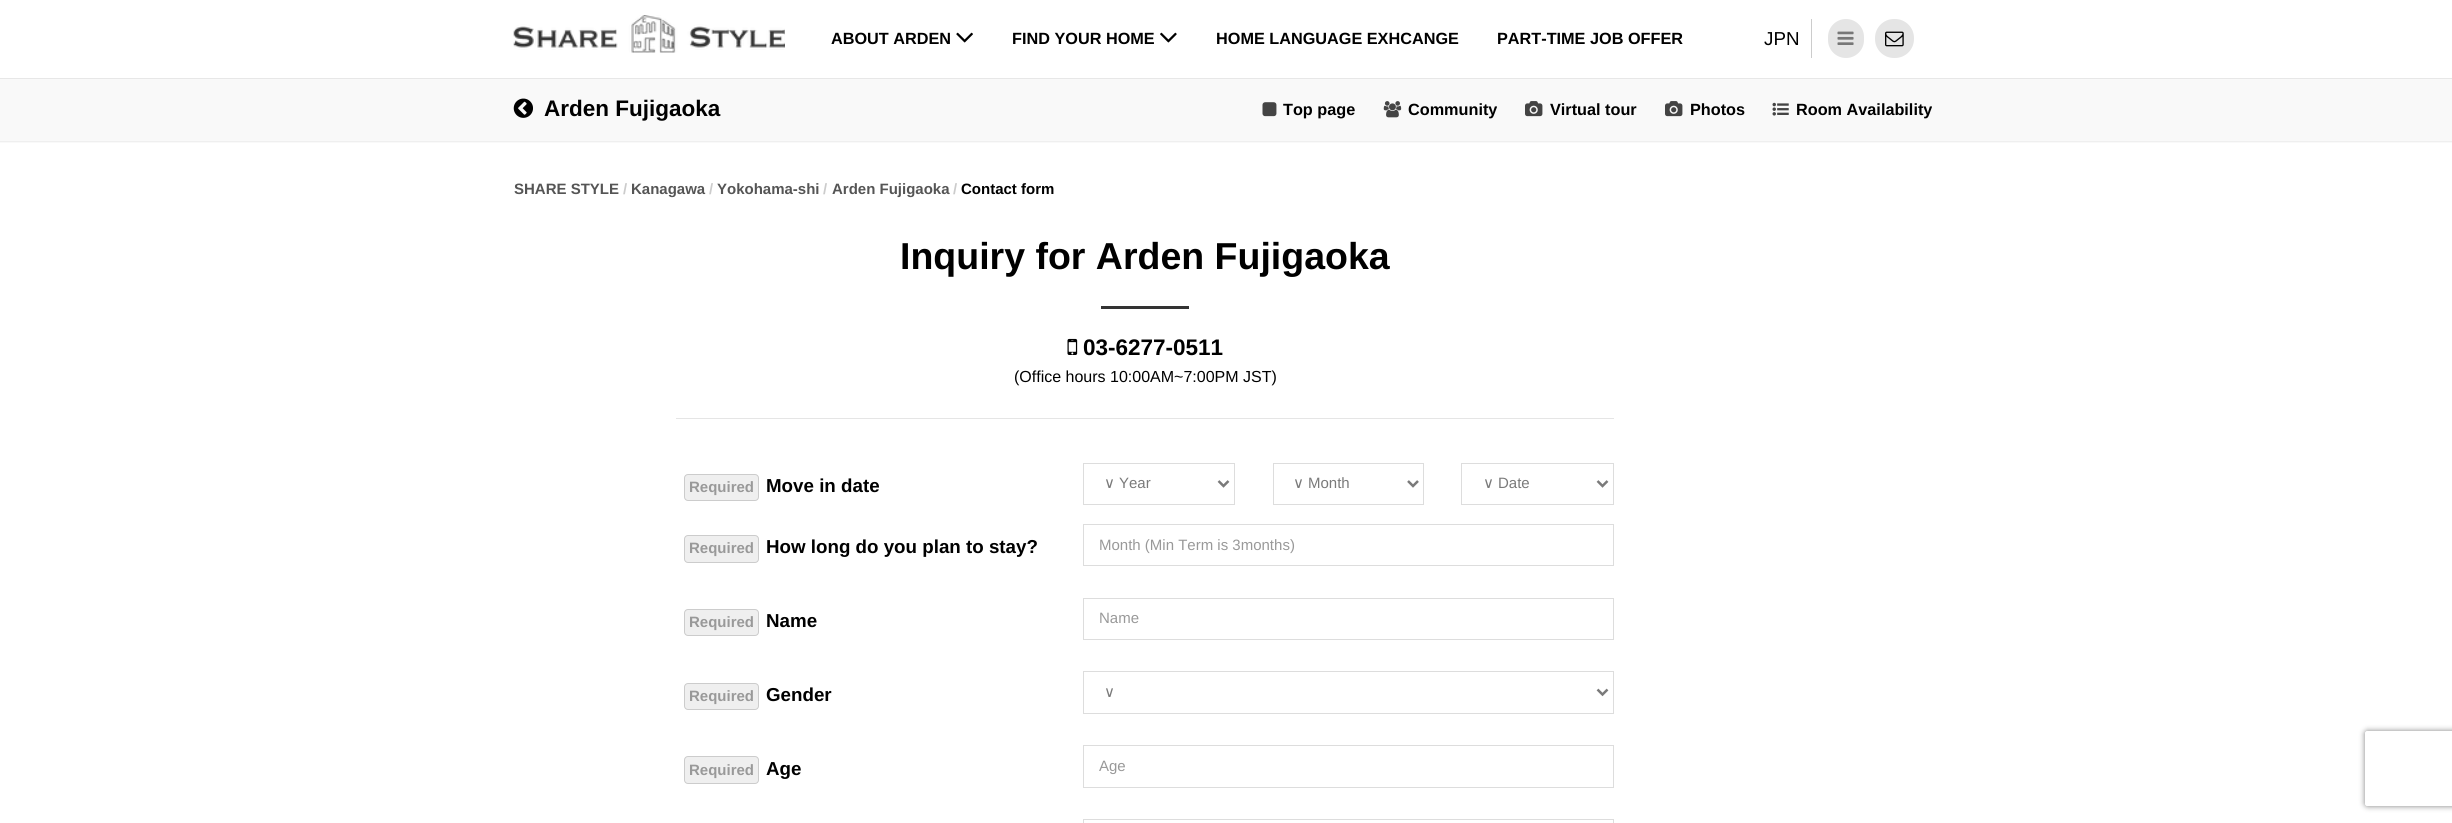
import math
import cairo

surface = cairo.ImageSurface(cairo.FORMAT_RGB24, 2452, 823)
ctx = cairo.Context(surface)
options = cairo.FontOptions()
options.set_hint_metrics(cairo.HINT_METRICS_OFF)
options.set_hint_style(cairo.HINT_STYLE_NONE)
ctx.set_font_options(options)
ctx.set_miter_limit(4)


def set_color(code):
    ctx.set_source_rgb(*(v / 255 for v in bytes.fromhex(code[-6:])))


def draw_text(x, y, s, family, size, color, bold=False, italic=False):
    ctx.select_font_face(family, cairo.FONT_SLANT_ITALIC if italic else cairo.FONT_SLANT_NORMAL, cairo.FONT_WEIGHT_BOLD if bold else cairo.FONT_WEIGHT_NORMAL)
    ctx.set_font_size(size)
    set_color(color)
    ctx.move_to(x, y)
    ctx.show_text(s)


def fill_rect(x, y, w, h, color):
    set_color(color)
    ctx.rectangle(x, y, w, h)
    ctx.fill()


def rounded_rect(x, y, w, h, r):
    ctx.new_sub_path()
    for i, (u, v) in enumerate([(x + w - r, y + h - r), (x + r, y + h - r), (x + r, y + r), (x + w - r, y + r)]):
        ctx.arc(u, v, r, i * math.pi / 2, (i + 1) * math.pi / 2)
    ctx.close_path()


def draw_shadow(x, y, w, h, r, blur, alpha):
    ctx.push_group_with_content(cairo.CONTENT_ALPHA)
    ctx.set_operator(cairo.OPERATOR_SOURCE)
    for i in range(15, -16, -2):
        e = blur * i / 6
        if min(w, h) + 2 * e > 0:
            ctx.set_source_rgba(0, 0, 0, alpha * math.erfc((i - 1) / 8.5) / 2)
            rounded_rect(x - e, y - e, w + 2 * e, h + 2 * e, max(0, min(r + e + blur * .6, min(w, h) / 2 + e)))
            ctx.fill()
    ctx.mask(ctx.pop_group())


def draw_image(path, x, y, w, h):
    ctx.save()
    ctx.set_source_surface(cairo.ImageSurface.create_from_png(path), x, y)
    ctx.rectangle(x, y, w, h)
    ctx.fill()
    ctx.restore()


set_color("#ffffff")
ctx.paint()
fill_rect(0, 78, 2452, 1, "#e7e7e7")
draw_image("assets/img1.png", 513, 15, 272, 38)
draw_text(831, 44, "ABOUT ARDEN", "Liberation Sans", 16.25, "#000000", bold=True)
draw_image("assets/img2.png", 956, 32, 17, 11)
draw_text(1012, 44, "FIND YOUR HOME", "Liberation Sans", 16.25, "#000000", bold=True)
draw_image("assets/img3.png", 1160, 32, 17, 11)
draw_text(1216, 44, "HOME LANGUAGE EXHCANGE", "Liberation Sans", 16.25, "#000000", bold=True)
draw_text(1497, 44, "PART-TIME JOB OFFER", "Liberation Sans", 16.25, "#000000", bold=True)
draw_text(1764, 45, "JPN", "Liberation Sans", 18.75, "#000000")
fill_rect(1811, 19, 1, 39, "#cccccc")
set_color("#e5e5e5")
rounded_rect(1828, 19, 36, 39, 18)
ctx.fill()
draw_image("assets/img4.png", 1837, 31, 17, 14)
rounded_rect(1875, 19, 39, 39, 19)
ctx.fill()
draw_image("assets/img5.png", 1885, 31, 19, 16)
fill_rect(0, 79, 2452, 64, "#f9f9f9")
fill_rect(0, 141, 2452, 1, "#efefef")
draw_image("assets/img6.png", 513, 98, 20, 20)
draw_text(544, 116, "Arden Fujigaoka", "Liberation Sans", 22.5, "#000000", bold=True)
draw_image("assets/img7.png", 1262, 102, 15, 15)
draw_text(1283, 115, "Top page", "Liberation Sans", 16.25, "#000000", bold=True)
draw_image("assets/img8.png", 1383, 101, 19, 17)
draw_text(1408, 115, "Community", "Liberation Sans", 16.25, "#000000", bold=True)
draw_image("assets/img9.png", 1525, 101, 18, 16)
draw_text(1550, 115, "Virtual tour", "Liberation Sans", 16.25, "#000000", bold=True)
draw_image("assets/img9.png", 1665, 101, 18, 16)
draw_text(1690, 115, "Photos", "Liberation Sans", 16.25, "#000000", bold=True)
draw_image("assets/img10.png", 1772, 102, 17, 14)
draw_text(1796, 115, "Room Availability", "Liberation Sans", 16.25, "#000000", bold=True)
draw_text(514, 194, "SHARE STYLE", "Liberation Sans", 15, "#555555", bold=True)
draw_text(623, 194, "/", "Liberation Sans", 15, "#cccccc", bold=True)
draw_text(631, 194, "Kanagawa", "Liberation Sans", 15, "#555555", bold=True)
draw_text(709, 194, "/", "Liberation Sans", 15, "#cccccc", bold=True)
draw_text(717, 194, "Yokohama-shi", "Liberation Sans", 15, "#555555", bold=True)
draw_text(823, 194, "/", "Liberation Sans", 15, "#cccccc", bold=True)
draw_text(832, 194, "Arden Fujigaoka", "Liberation Sans", 15, "#555555", bold=True)
draw_text(953, 194, "/", "Liberation Sans", 15, "#cccccc", bold=True)
draw_text(961, 194, "Contact form", "Liberation Sans", 15, "#000000", bold=True)
draw_text(900, 269, "Inquiry for Arden Fujigaoka", "Liberation Sans", 37.5, "#000000", bold=True)
fill_rect(1101, 306, 88, 3, "#333333")
draw_image("assets/img11.png", 1067, 338, 11, 17)
draw_text(1083, 355, "03-6277-0511", "Liberation Sans", 22.5, "#000000", bold=True)
draw_text(1014, 382, "(Office hours 10:00AM~7:00PM JST)", "Liberation Sans", 16, "#000000")
fill_rect(676, 418, 938, 1, "#e5e5e5")
set_color("#efefef")
rounded_rect(684.5, 474.5, 74, 26, 3.5)
ctx.fill_preserve()
set_color("#cccccc")
ctx.set_line_width(1)
ctx.stroke()
draw_text(689, 492, "Required", "Liberation Sans", 15, "#999999", bold=True)
draw_text(766, 492, "Move in date", "Liberation Sans", 18.75, "#000000", bold=True)
ctx.rectangle(1083.5, 463.5, 151, 41)
set_color("#dddddd")
ctx.stroke()
ctx.new_path()
ctx.move_to(1218.5, 481)
ctx.line_to(1223.5, 486)
ctx.line_to(1228.5, 481)
set_color("#7a7a7a")
ctx.set_line_width(2.5)
ctx.stroke()
draw_text(1104, 488, "∨", "DejaVu Sans", 15, "#7a7a7a")
draw_text(1119, 488, "Year", "Liberation Sans", 15, "#7a7a7a")
ctx.rectangle(1273.5, 463.5, 150, 41)
set_color("#dddddd")
ctx.set_line_width(1)
ctx.stroke()
ctx.new_path()
ctx.move_to(1408, 481)
ctx.line_to(1413, 486)
ctx.line_to(1418, 481)
set_color("#7a7a7a")
ctx.set_line_width(2.5)
ctx.stroke()
draw_text(1293, 488, "∨", "DejaVu Sans", 15, "#7a7a7a")
draw_text(1308, 488, "Month", "Liberation Sans", 15, "#7a7a7a")
ctx.rectangle(1461.5, 463.5, 152, 41)
set_color("#dddddd")
ctx.set_line_width(1)
ctx.stroke()
ctx.new_path()
ctx.move_to(1597.5, 481)
ctx.line_to(1602.5, 486)
ctx.line_to(1607.5, 481)
set_color("#7a7a7a")
ctx.set_line_width(2.5)
ctx.stroke()
draw_text(1483, 488, "∨", "DejaVu Sans", 15, "#7a7a7a")
draw_text(1498, 488, "Date", "Liberation Sans", 15, "#7a7a7a")
set_color("#efefef")
rounded_rect(684.5, 535.5, 74, 27, 3.5)
ctx.fill_preserve()
set_color("#cccccc")
ctx.set_line_width(1)
ctx.stroke()
draw_text(689, 553, "Required", "Liberation Sans", 15, "#999999", bold=True)
draw_text(766, 553, "How long do you plan to stay?", "Liberation Sans", 18.75, "#000000", bold=True)
ctx.rectangle(1083.5, 524.5, 530, 41)
set_color("#dddddd")
ctx.stroke()
draw_text(1099, 550, "Month (Min Term is 3months)", "Liberation Sans", 15, "#999999")
set_color("#efefef")
rounded_rect(684.5, 609.5, 74, 26, 3.5)
ctx.fill_preserve()
set_color("#cccccc")
ctx.stroke()
draw_text(689, 627, "Required", "Liberation Sans", 15, "#999999", bold=True)
draw_text(766, 627, "Name", "Liberation Sans", 18.75, "#000000", bold=True)
ctx.rectangle(1083.5, 598.5, 530, 41)
set_color("#dddddd")
ctx.stroke()
draw_text(1099, 623, "Name", "Liberation Sans", 15, "#999999")
set_color("#efefef")
rounded_rect(684.5, 683.5, 74, 26, 3.5)
ctx.fill_preserve()
set_color("#cccccc")
ctx.stroke()
draw_text(689, 701, "Required", "Liberation Sans", 15, "#999999", bold=True)
draw_text(766, 701, "Gender", "Liberation Sans", 18.75, "#000000", bold=True)
ctx.rectangle(1083.5, 671.5, 530, 42)
set_color("#dddddd")
ctx.stroke()
ctx.new_path()
ctx.move_to(1597.5, 689.5)
ctx.line_to(1602.5, 694.5)
ctx.line_to(1607.5, 689.5)
set_color("#7a7a7a")
ctx.set_line_width(2.5)
ctx.stroke()
draw_text(1104, 697, "∨", "DejaVu Sans", 15, "#7a7a7a")
set_color("#efefef")
rounded_rect(684.5, 756.5, 74, 27, 3.5)
ctx.fill_preserve()
set_color("#cccccc")
ctx.set_line_width(1)
ctx.stroke()
draw_text(689, 775, "Required", "Liberation Sans", 15, "#999999", bold=True)
draw_text(766, 775, "Age", "Liberation Sans", 18.75, "#000000", bold=True)
ctx.rectangle(1083.5, 745.5, 530, 42)
set_color("#dddddd")
ctx.stroke()
draw_text(1099, 771, "Age", "Liberation Sans", 15, "#999999")
ctx.rectangle(1083.5, 819.5, 530, 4)
set_color("#dddddd")
ctx.stroke()
ctx.save()
ctx.set_fill_rule(cairo.FILL_RULE_EVEN_ODD)
ctx.new_path()
ctx.move_to(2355, 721)
ctx.line_to(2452, 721)
ctx.line_to(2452, 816)
ctx.line_to(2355, 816)
ctx.close_path()
ctx.move_to(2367.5, 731)
ctx.line_to(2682.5, 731)
ctx.curve_to(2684, 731, 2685, 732, 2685, 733.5)
ctx.line_to(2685, 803.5)
ctx.curve_to(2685, 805, 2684, 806, 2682.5, 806)
ctx.line_to(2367.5, 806)
ctx.curve_to(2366, 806, 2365, 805, 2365, 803.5)
ctx.line_to(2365, 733.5)
ctx.curve_to(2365, 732, 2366, 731, 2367.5, 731)
ctx.close_path()
ctx.clip()
set_color("#808080")
draw_shadow(2365, 731, 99, 75, 2.5, 3, 1)
ctx.restore()
surface.write_to_png("output.png")
